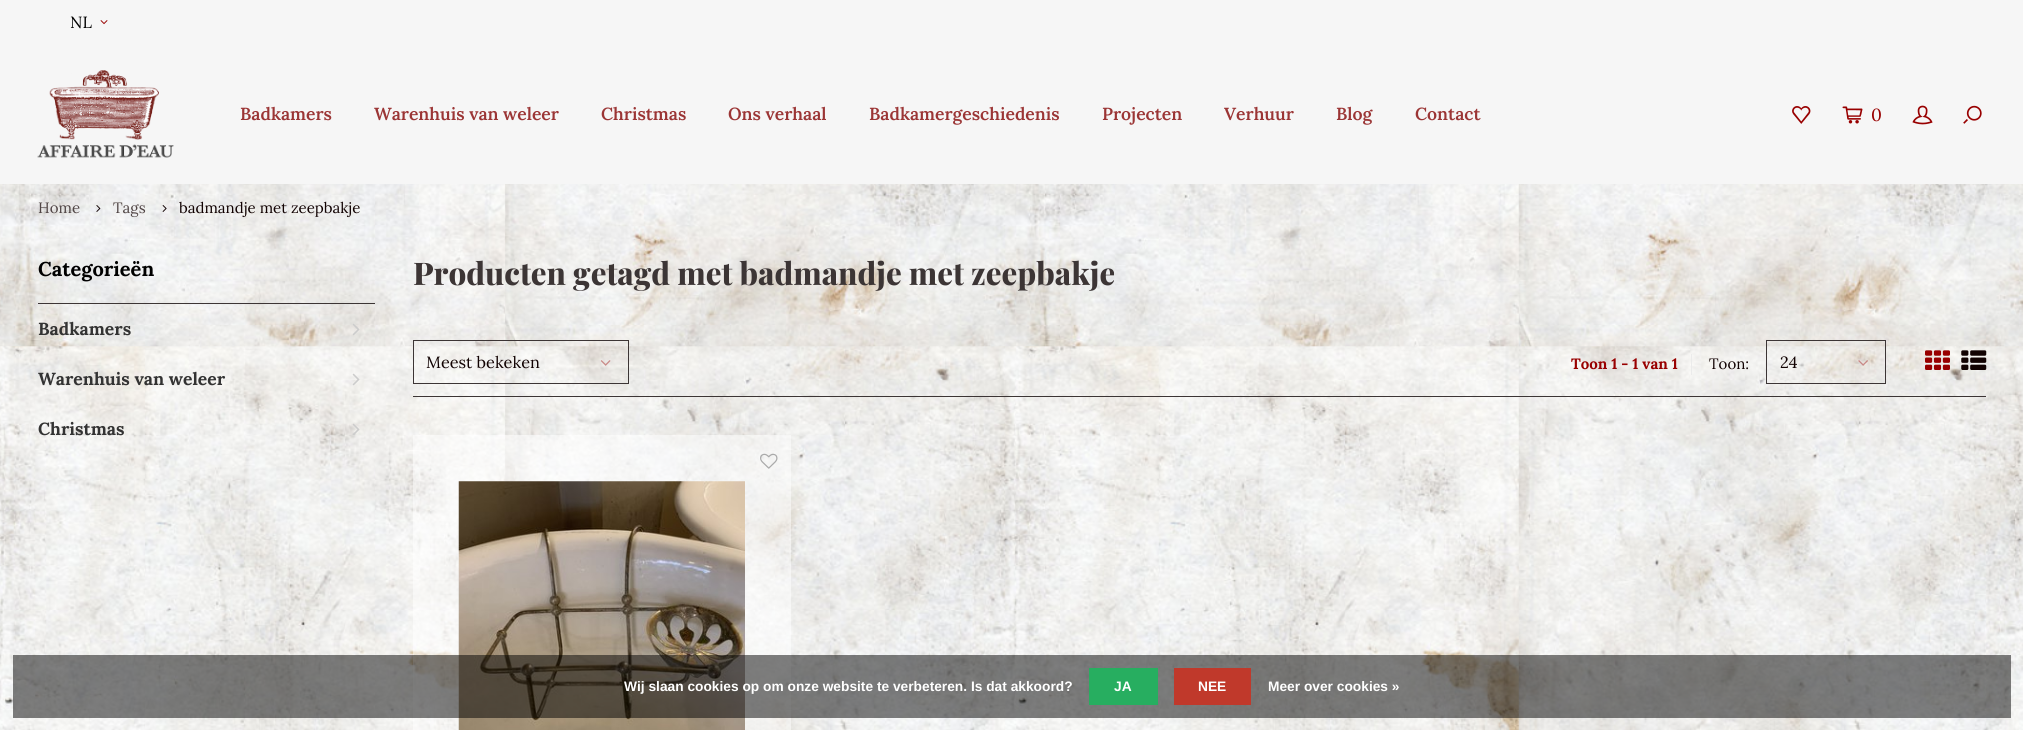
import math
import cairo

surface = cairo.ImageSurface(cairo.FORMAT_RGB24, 2023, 730)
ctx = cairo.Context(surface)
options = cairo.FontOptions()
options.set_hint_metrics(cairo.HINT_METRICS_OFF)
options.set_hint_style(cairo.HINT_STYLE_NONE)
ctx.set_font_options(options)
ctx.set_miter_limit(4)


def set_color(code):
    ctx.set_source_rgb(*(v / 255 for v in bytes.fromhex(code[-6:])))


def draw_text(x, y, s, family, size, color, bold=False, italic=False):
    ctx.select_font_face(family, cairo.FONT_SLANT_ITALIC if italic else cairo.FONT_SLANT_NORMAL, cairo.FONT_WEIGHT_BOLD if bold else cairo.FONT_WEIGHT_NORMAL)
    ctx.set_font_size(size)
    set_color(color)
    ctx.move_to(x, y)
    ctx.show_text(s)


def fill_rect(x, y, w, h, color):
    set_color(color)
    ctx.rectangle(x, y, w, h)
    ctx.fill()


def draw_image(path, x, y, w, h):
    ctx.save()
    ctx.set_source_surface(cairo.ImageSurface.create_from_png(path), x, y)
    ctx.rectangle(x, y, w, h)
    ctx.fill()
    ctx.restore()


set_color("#ffffff")
ctx.paint()
draw_image("assets/img1.png", 0, 184, 2023, 546)
fill_rect(0, 0, 2023, 184, "#f6f6f6")
draw_text(70, 28, "NL", "Lora", 16.25, "#000000")
draw_image("assets/img2.png", 100, 20, 8, 5)
draw_image("assets/img3.png", 37, 70, 137, 88)
draw_text(240, 120, "Badkamers", "Lora SemiBold", 17.5, "#9b3535")
draw_text(374, 120, "Warenhuis van weleer", "Lora SemiBold", 17.5, "#9b3535")
draw_text(601, 120, "Christmas", "Lora SemiBold", 17.5, "#9b3535")
draw_text(728, 120, "Ons verhaal", "Lora SemiBold", 17.5, "#9b3535")
draw_text(869, 120, "Badkamergeschiedenis", "Lora SemiBold", 17.5, "#9b3535")
draw_text(1102, 120, "Projecten", "Lora SemiBold", 17.5, "#9b3535")
draw_text(1224, 120, "Verhuur", "Lora SemiBold", 17.5, "#9b3535")
draw_text(1336, 120, "Blog", "Lora SemiBold", 17.5, "#9b3535")
draw_text(1415, 120, "Contact", "Lora SemiBold", 17.5, "#9b3535")
draw_image("assets/img4.png", 1792, 106, 19, 18)
draw_image("assets/img5.png", 1842, 106, 21, 18)
draw_text(1871, 121, "0", "Lora", 17.5, "#980000")
draw_image("assets/img6.png", 1912, 105, 21, 20)
draw_image("assets/img7.png", 1963, 105, 19, 19)
draw_text(38, 213, "Home", "Lora", 15, "#504545")
draw_image("assets/img8.png", 96, 205, 5, 7)
draw_text(113, 213, "Tags", "Lora", 15, "#504545")
draw_image("assets/img9.png", 162, 205, 5, 7)
draw_text(179, 213, "badmandje met zeepbakje", "Lora", 15, "#110202")
draw_text(38, 276, "Categorieën", "Lora", 20, "#000000", bold=True)
fill_rect(38, 303, 337, 1, "#3c3535")
draw_text(38, 335, "Badkamers", "Lora", 17.5, "#333333", bold=True)
draw_image("assets/img10.png", 352, 323, 8, 13)
draw_text(38, 385, "Warenhuis van weleer", "Lora", 17.5, "#333333", bold=True)
draw_image("assets/img11.png", 352, 373, 8, 13)
draw_text(38, 435, "Christmas", "Lora", 17.5, "#333333", bold=True)
draw_image("assets/img12.png", 352, 423, 8, 12)
draw_text(413, 285, "Producten getagd met badmandje met zeepbakje", "Playfair Display ExtraBold", 31.25, "#3c3535")
fill_rect(413, 396, 1573, 1, "#3c3535")
ctx.rectangle(413.5, 340.5, 215, 43)
ctx.set_line_width(1)
ctx.stroke()
draw_text(426, 368, "Meest bekeken", "Lora", 16.25, "#110202")
draw_image("assets/img13.png", 600, 360, 11, 6)
fill_rect(1691, 354, 1, 21, "#ebebeb")
draw_text(1571, 369, "Toon 1 - 1 van 1", "Lora", 15, "#980000", bold=True)
draw_text(1709, 369, "Toon:", "Lora", 15, "#110202")
ctx.rectangle(1766.5, 340.5, 119, 43)
set_color("#3c3535")
ctx.stroke()
draw_text(1780, 368, "24", "Lora", 16.25, "#110202")
draw_image("assets/img14.png", 1858, 360, 10, 6)
draw_image("assets/img15.png", 1925, 350, 25, 20)
draw_image("assets/img16.png", 1961, 350, 26, 20)
ctx.set_source_rgba(1, 1, 1, 0.5)
ctx.rectangle(413, 435, 378, 295)
ctx.fill()
draw_image("assets/img17.png", 760, 453, 18, 16)
draw_image("assets/img18.png", 458, 481, 287, 249)
ctx.set_source_rgba(0, 0, 0, 0.5)
ctx.rectangle(13, 655, 1998, 63)
ctx.fill()
draw_text(624, 691, "Wij slaan cookies op om onze website te verbeteren. Is dat akkoord?", "Liberation Sans", 13.75, "#ffffff", bold=True)
fill_rect(1089, 668, 69, 37, "#27ae60")
draw_text(1114, 691, "JA", "Liberation Sans", 13.75, "#ffffff", bold=True)
fill_rect(1174, 668, 77, 37, "#c0392b")
draw_text(1198, 691, "NEE", "Liberation Sans", 13.75, "#ffffff", bold=True)
draw_text(1268, 691, "Meer over cookies »", "Liberation Sans", 13.75, "#ffffff", bold=True)
surface.write_to_png("output.png")
